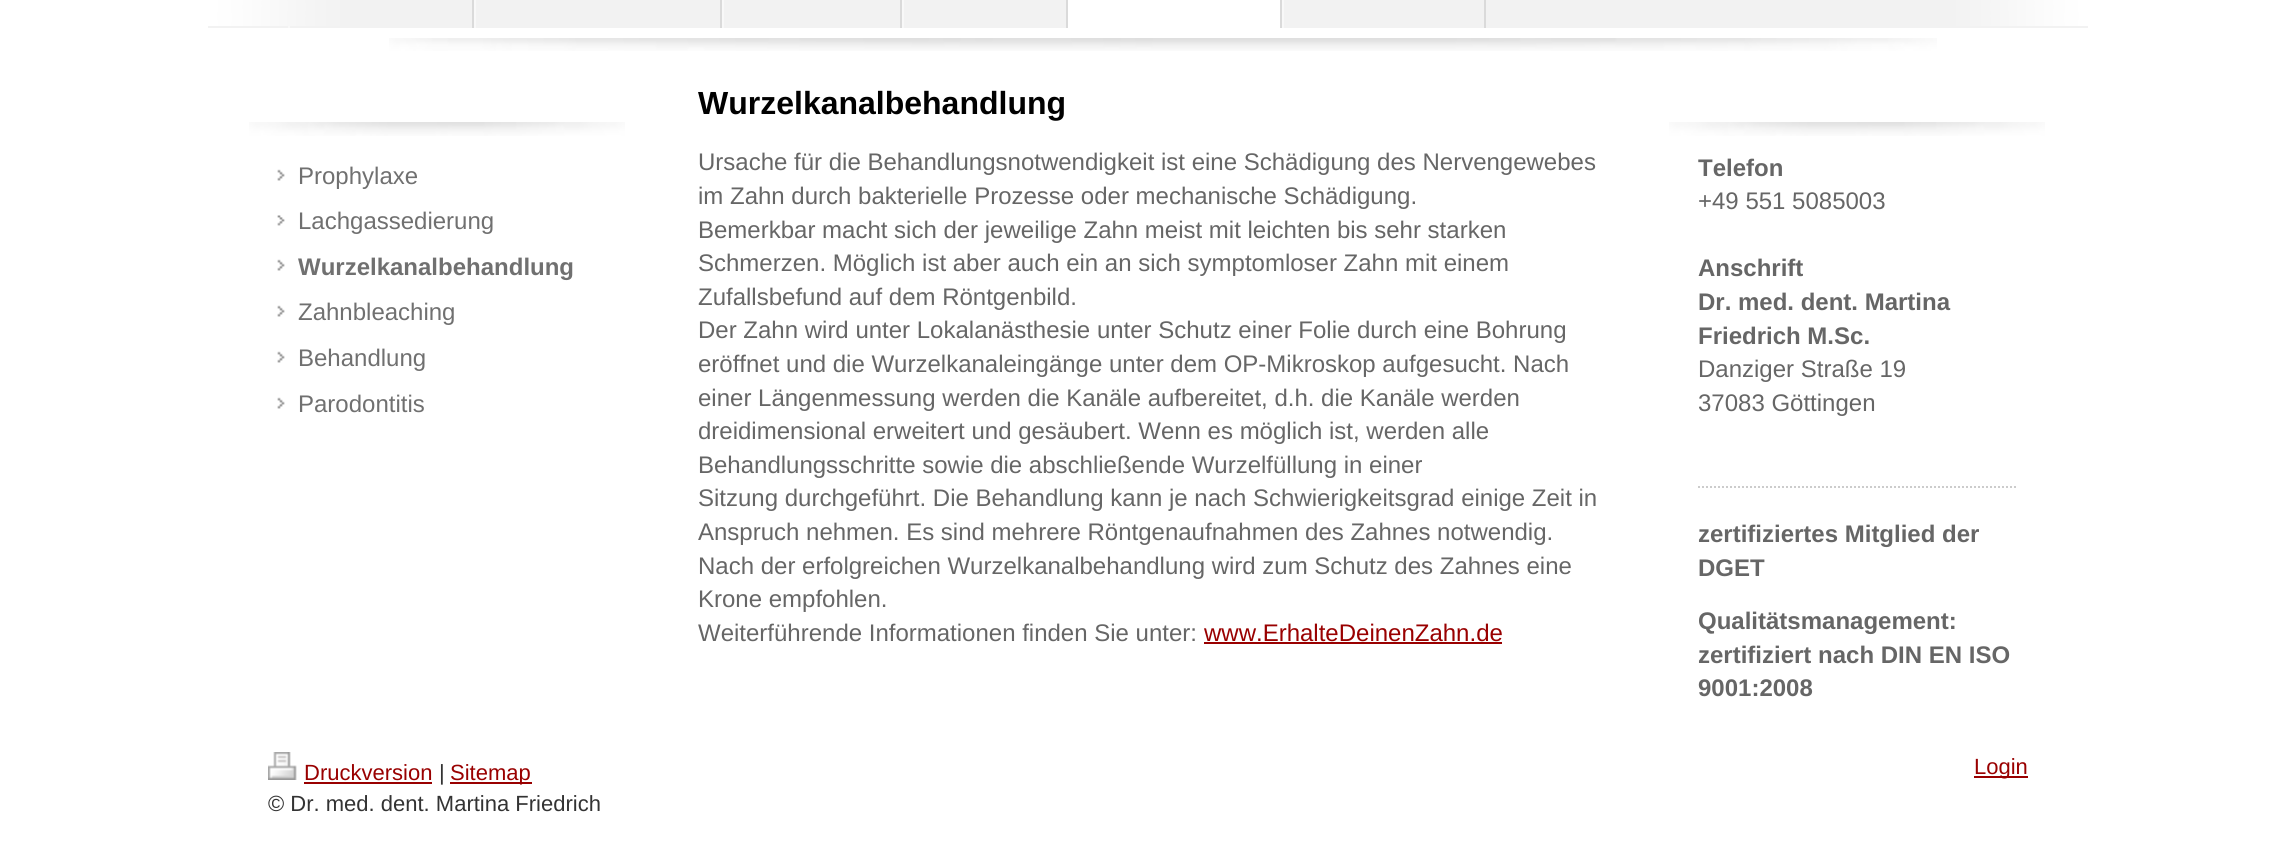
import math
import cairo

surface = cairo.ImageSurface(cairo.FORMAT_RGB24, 2295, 856)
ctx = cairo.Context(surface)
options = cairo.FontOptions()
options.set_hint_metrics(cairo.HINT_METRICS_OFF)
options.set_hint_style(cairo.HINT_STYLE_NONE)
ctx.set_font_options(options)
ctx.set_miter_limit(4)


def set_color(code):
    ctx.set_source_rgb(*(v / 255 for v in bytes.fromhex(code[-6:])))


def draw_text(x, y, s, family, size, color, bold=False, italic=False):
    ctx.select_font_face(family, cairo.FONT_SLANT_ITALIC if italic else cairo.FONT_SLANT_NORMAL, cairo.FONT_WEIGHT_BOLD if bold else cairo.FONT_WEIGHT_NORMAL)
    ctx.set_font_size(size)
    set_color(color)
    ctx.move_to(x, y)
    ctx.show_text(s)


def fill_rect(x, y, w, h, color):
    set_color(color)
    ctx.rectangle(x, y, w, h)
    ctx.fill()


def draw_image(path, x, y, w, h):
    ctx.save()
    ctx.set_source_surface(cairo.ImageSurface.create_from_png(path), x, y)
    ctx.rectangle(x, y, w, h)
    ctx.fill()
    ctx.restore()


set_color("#ffffff")
ctx.paint()
fill_rect(208, 0, 1880, 28, "#f2f2f2")
draw_image("assets/img1.png", 208, 0, 1880, 26)
fill_rect(472, 0, 2, 28, "#dadada")
fill_rect(288, 26, 2, 2, "#f8f8f8")
fill_rect(720, 0, 2, 28, "#dadada")
fill_rect(474, 0, 2, 28, "#f8f8f8")
fill_rect(900, 0, 2, 28, "#dadada")
fill_rect(722, 0, 2, 28, "#f8f8f8")
fill_rect(1066, 0, 2, 28, "#dadada")
fill_rect(902, 0, 2, 28, "#f8f8f8")
fill_rect(1068, 0, 212, 28, "#ffffff")
fill_rect(1280, 0, 2, 28, "#dadada")
fill_rect(1484, 0, 2, 28, "#dadada")
fill_rect(1282, 0, 2, 28, "#f8f8f8")
draw_image("assets/img2.png", 389, 38, 1548, 13)
draw_image("assets/img3.png", 249, 122, 376, 14)
fill_rect(277, 169, 8, 12, "#707070")
draw_image("assets/img4.png", 268, 154, 420, 46)
draw_text(298, 184, "Prophylaxe", "Liberation Sans", 24, "#707070")
fill_rect(277, 215, 8, 11, "#707070")
draw_image("assets/img5.png", 268, 200, 420, 44)
draw_text(298, 229, "Lachgassedierung", "Liberation Sans", 24, "#707070")
fill_rect(277, 259, 8, 12, "#707070")
draw_image("assets/img4.png", 268, 244, 420, 46)
draw_text(298, 275, "Wurzelkanalbehandlung", "Liberation Sans", 24, "#707070", bold=True)
fill_rect(277, 305, 8, 12, "#707070")
draw_image("assets/img4.png", 268, 290, 420, 46)
draw_text(298, 320, "Zahnbleaching", "Liberation Sans", 24, "#707070")
fill_rect(277, 351, 8, 12, "#707070")
draw_image("assets/img4.png", 268, 336, 420, 46)
draw_text(298, 366, "Behandlung", "Liberation Sans", 24, "#707070")
fill_rect(277, 397, 8, 12, "#707070")
draw_image("assets/img4.png", 268, 382, 420, 46)
draw_text(298, 412, "Parodontitis", "Liberation Sans", 24, "#707070")
draw_text(698, 114, "Wurzelkanalbehandlung", "Liberation Sans", 32, "#000000", bold=True)
draw_text(698, 170, "Ursache für die Behandlungsnotwendigkeit ist eine Schädigung des Nervengewebes", "Liberation Sans", 24, "#666666")
draw_text(698, 204, "im Zahn durch bakterielle Prozesse oder mechanische Schädigung.", "Liberation Sans", 24, "#666666")
draw_text(698, 238, "Bemerkbar macht sich der jeweilige Zahn meist mit leichten bis sehr starken", "Liberation Sans", 24, "#666666")
draw_text(698, 271, "Schmerzen. Möglich ist aber auch ein an sich symptomloser Zahn mit einem", "Liberation Sans", 24, "#666666")
draw_text(698, 305, "Zufallsbefund auf dem Röntgenbild.", "Liberation Sans", 24, "#666666")
draw_text(698, 338, "Der Zahn wird unter Lokalanästhesie unter Schutz einer Folie durch eine Bohrung", "Liberation Sans", 24, "#666666")
draw_text(698, 372, "eröffnet und die Wurzelkanaleingänge unter dem OP-Mikroskop aufgesucht. Nach", "Liberation Sans", 24, "#666666")
draw_text(698, 406, "einer Längenmessung werden die Kanäle aufbereitet, d.h. die Kanäle werden", "Liberation Sans", 24, "#666666")
draw_text(698, 439, "dreidimensional erweitert und gesäubert. Wenn es möglich ist, werden alle", "Liberation Sans", 24, "#666666")
draw_text(698, 473, "Behandlungsschritte sowie die abschließende Wurzelfüllung in einer", "Liberation Sans", 24, "#666666")
draw_text(698, 506, "Sitzung durchgeführt. Die Behandlung kann je nach Schwierigkeitsgrad einige Zeit in", "Liberation Sans", 24, "#666666")
draw_text(698, 540, "Anspruch nehmen. Es sind mehrere Röntgenaufnahmen des Zahnes notwendig.", "Liberation Sans", 24, "#666666")
draw_text(698, 574, "Nach der erfolgreichen Wurzelkanalbehandlung wird zum Schutz des Zahnes eine", "Liberation Sans", 24, "#666666")
draw_text(698, 607, "Krone empfohlen.", "Liberation Sans", 24, "#666666")
draw_text(698, 641, "Weiterführende Informationen finden Sie unter:", "Liberation Sans", 24, "#666666")
draw_text(1204, 641, "www.ErhalteDeinenZahn.de", "Liberation Sans", 24, "#990000")
fill_rect(1204, 642, 298, 2, "#990000")
draw_image("assets/img3.png", 1669, 122, 376, 14)
draw_text(1698, 176, "Telefon", "Liberation Sans", 24, "#666666", bold=True)
draw_text(1698, 209, "+49 551 5085003", "Liberation Sans", 24, "#666666")
draw_text(1698, 276, "Anschrift", "Liberation Sans", 24, "#666666", bold=True)
draw_text(1698, 310, "Dr. med. dent. Martina", "Liberation Sans", 24, "#666666", bold=True)
draw_text(1698, 344, "Friedrich M.Sc.", "Liberation Sans", 24, "#666666", bold=True)
draw_text(1698, 377, "Danziger Straße 19", "Liberation Sans", 24, "#666666")
draw_text(1698, 411, "37083 Göttingen", "Liberation Sans", 24, "#666666")
ctx.new_path()
ctx.move_to(1698, 487)
ctx.line_to(2018, 487)
set_color("#cccccc")
ctx.set_dash([2, 2])
ctx.stroke()
draw_text(1698, 542, "zertifiziertes Mitglied der", "Liberation Sans", 24, "#666666", bold=True)
draw_text(1698, 576, "DGET", "Liberation Sans", 24, "#666666", bold=True)
draw_text(1698, 629, "Qualitätsmanagement:", "Liberation Sans", 24, "#666666", bold=True)
draw_text(1698, 663, "zertifiziert nach DIN EN ISO", "Liberation Sans", 24, "#666666", bold=True)
draw_text(1698, 696, "9001:2008", "Liberation Sans", 24, "#666666", bold=True)
draw_image("assets/img6.png", 268, 752, 29, 28)
draw_text(304, 780, "Druckversion", "Liberation Sans", 22, "#990000")
fill_rect(304, 782, 128, 2, "#990000")
draw_text(439, 780, "|", "Liberation Sans", 22, "#333333")
fill_rect(450, 782, 82, 2, "#990000")
draw_text(450, 780, "Sitemap", "Liberation Sans", 22, "#990000")
draw_text(268, 811, "© Dr. med. dent. Martina Friedrich", "Liberation Sans", 22, "#333333")
fill_rect(1974, 776, 54, 2, "#990000")
draw_text(1974, 774, "Login", "Liberation Sans", 22, "#990000")
surface.write_to_png("output.png")
